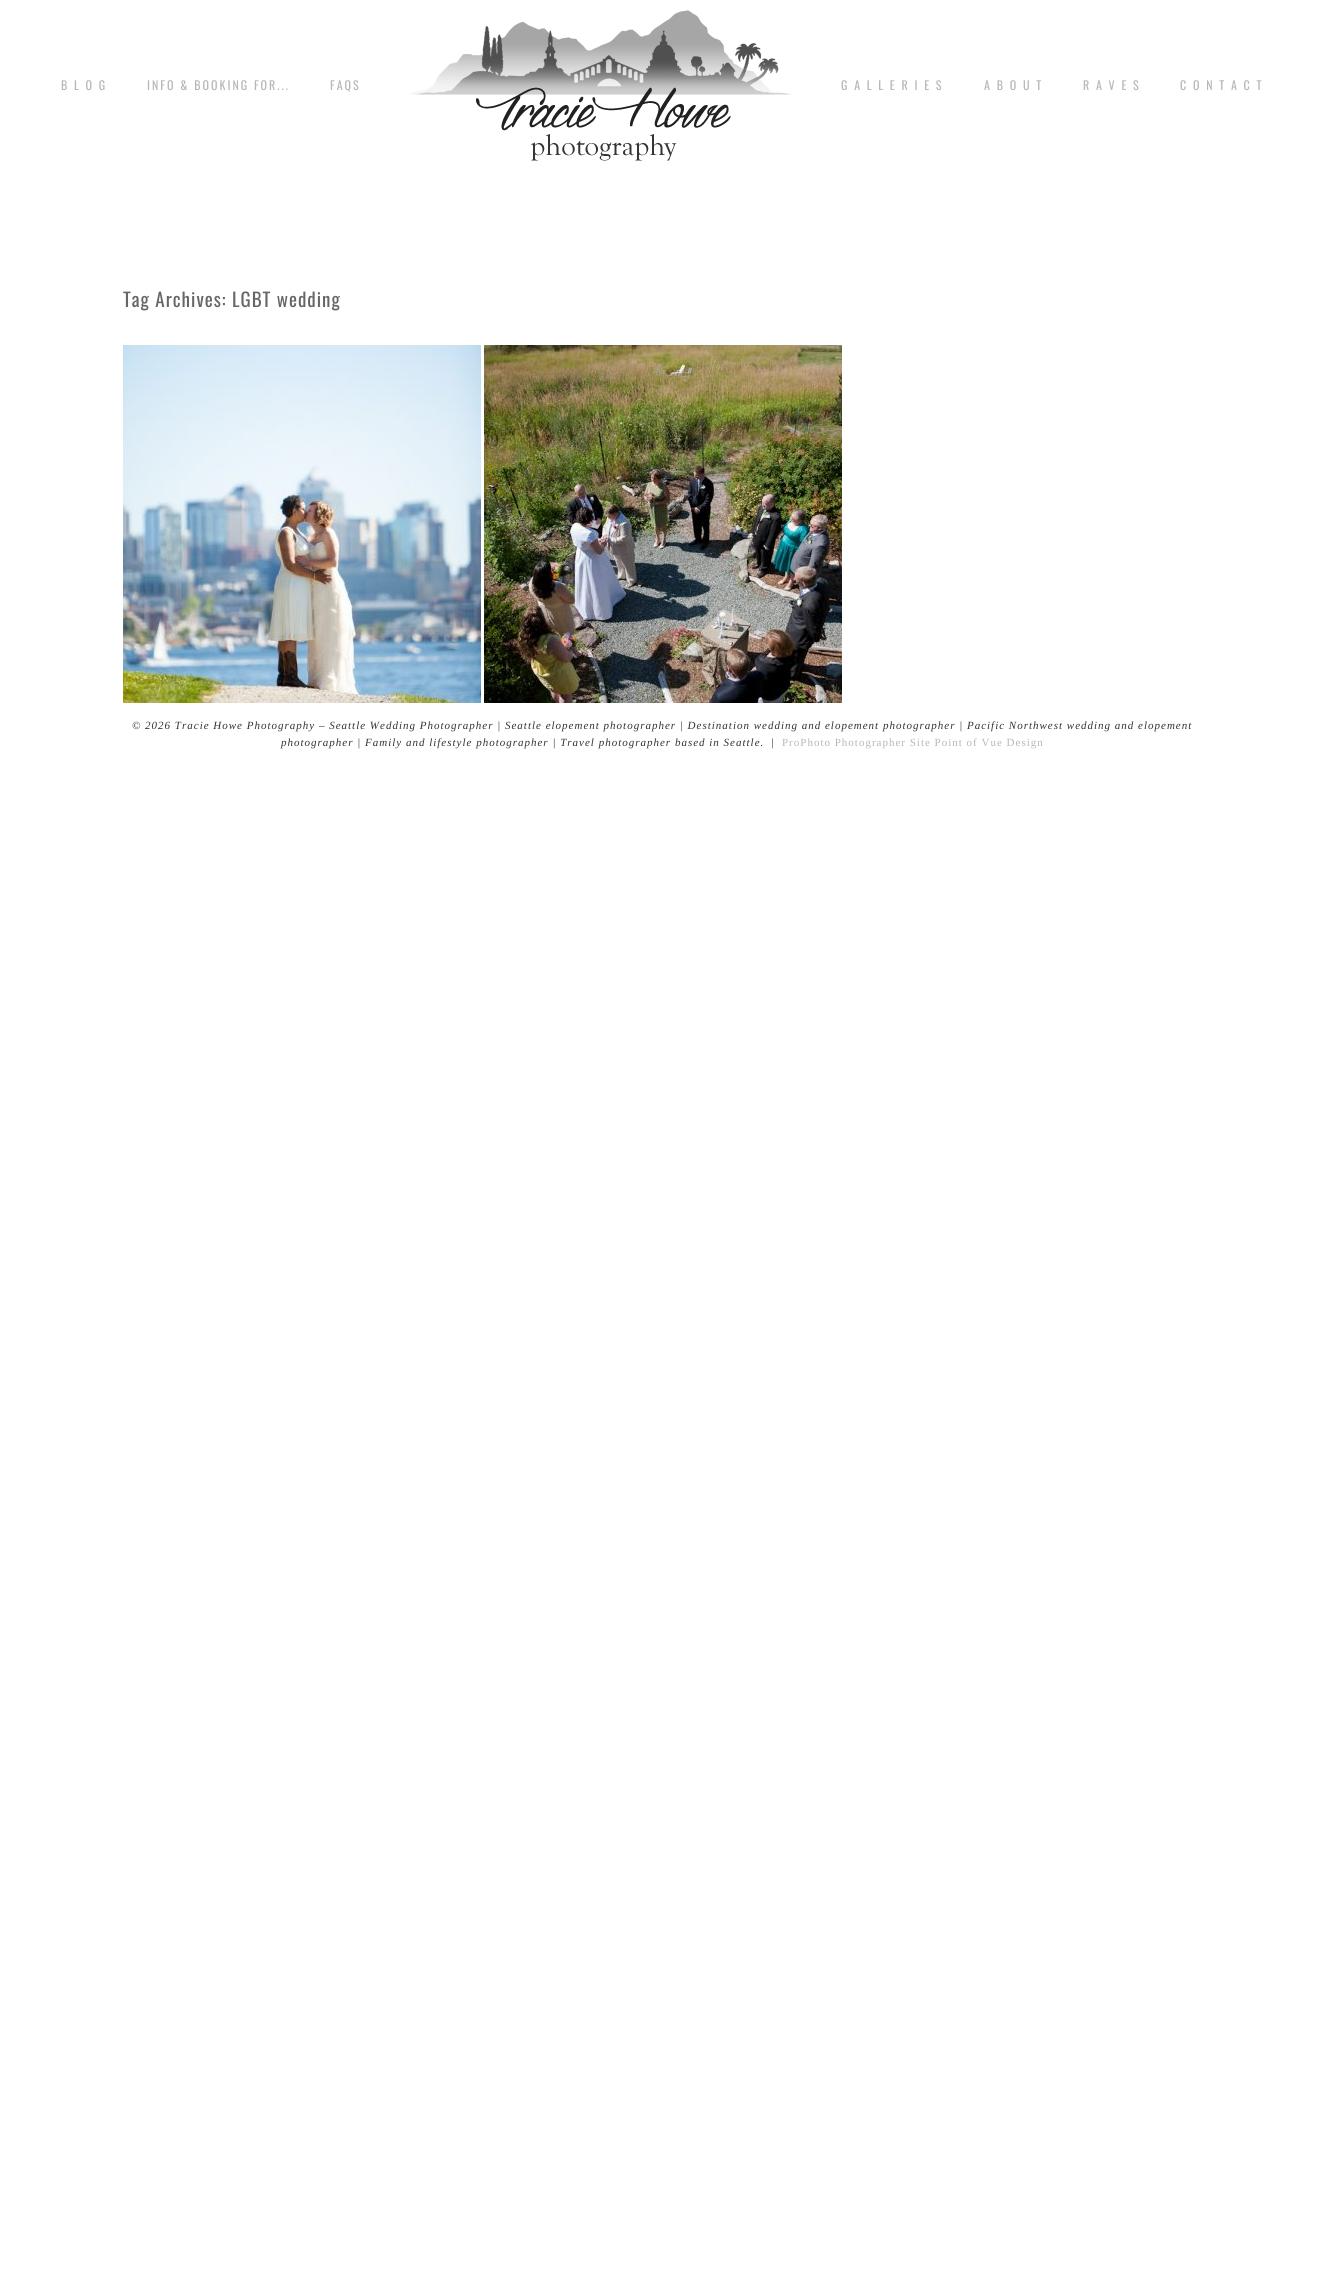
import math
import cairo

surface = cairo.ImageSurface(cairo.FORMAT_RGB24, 1325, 2290)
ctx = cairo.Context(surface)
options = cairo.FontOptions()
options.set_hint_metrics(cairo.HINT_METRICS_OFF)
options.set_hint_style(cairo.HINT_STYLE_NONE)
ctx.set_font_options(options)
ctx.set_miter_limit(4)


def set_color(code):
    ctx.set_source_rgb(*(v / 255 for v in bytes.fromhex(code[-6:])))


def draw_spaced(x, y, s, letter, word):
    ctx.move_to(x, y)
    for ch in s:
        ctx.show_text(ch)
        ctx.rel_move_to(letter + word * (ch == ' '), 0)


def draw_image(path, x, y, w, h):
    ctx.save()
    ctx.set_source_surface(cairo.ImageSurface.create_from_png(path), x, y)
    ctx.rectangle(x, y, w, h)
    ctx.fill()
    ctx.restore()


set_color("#ffffff")
ctx.paint()
ctx.select_font_face("Oswald")
ctx.set_font_size(12)
set_color("#b7b7b7")
draw_spaced(61, 90, "B L O G", 2, 0)
draw_spaced(147, 90, "INFO & BOOKING FOR...", 2, 0)
draw_spaced(330, 90, "FAQS", 2, 0)
draw_image("assets/img1.png", 409, 10, 382, 151)
draw_spaced(841, 90, "G A L L E R I E S", 2, 0)
draw_spaced(984, 90, "A B O U T", 2, 0)
draw_spaced(1083, 90, "R A V E S", 2, 0)
draw_spaced(1180, 90, "C O N T A C T", 2, 0)
ctx.set_font_size(19)
set_color("#666666")
draw_spaced(123, 307, "Tag Archives: LGBT wedding", 1, 0)
draw_image("assets/img2.png", 123, 345, 358, 358)
draw_image("assets/img3.png", 484, 345, 358, 358)
ctx.select_font_face("Liberation Serif", cairo.FONT_SLANT_ITALIC)
ctx.set_font_size(11)
set_color("#333333")
draw_spaced(132, 729, "© 2026 Tracie Howe Photography – Seattle Wedding Photographer | Seattle elopement photographer | Destination wedding and elopement photographer | Pacific Northwest wedding and elopement", 1, 0)
draw_spaced(281, 746, "photographer | Family and lifestyle photographer | Travel photographer based in Seattle.", 1, 0)
draw_spaced(771, 746, "|", 1, 0)
ctx.select_font_face("Liberation Serif")
set_color("#b7b7b7")
draw_spaced(782, 746, "ProPhoto Photographer Site Point of Vue Design", 1, 0)
surface.write_to_png("output.png")
